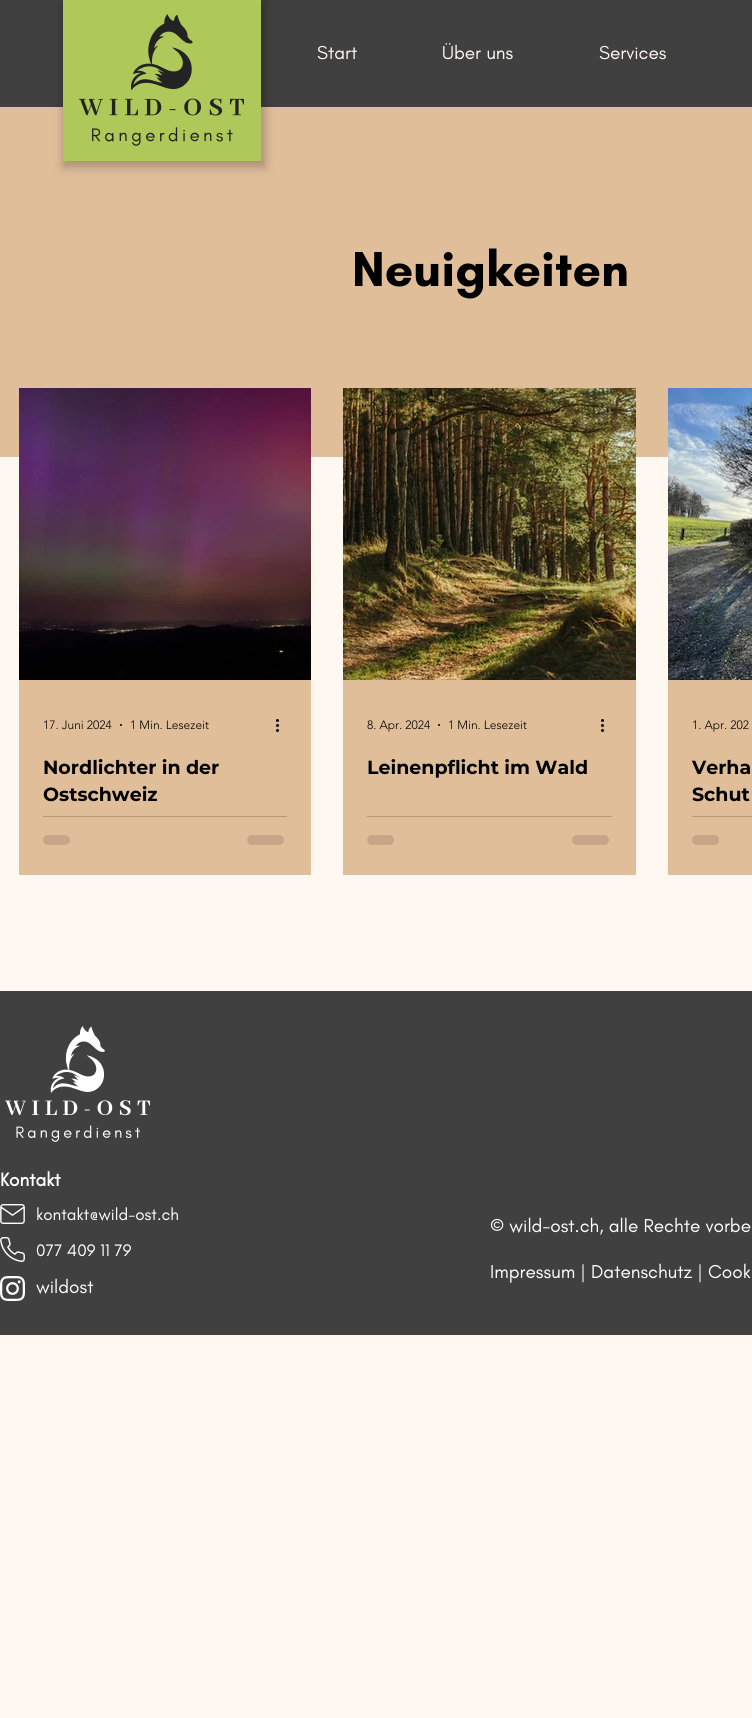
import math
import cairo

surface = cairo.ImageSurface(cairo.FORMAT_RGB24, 752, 1718)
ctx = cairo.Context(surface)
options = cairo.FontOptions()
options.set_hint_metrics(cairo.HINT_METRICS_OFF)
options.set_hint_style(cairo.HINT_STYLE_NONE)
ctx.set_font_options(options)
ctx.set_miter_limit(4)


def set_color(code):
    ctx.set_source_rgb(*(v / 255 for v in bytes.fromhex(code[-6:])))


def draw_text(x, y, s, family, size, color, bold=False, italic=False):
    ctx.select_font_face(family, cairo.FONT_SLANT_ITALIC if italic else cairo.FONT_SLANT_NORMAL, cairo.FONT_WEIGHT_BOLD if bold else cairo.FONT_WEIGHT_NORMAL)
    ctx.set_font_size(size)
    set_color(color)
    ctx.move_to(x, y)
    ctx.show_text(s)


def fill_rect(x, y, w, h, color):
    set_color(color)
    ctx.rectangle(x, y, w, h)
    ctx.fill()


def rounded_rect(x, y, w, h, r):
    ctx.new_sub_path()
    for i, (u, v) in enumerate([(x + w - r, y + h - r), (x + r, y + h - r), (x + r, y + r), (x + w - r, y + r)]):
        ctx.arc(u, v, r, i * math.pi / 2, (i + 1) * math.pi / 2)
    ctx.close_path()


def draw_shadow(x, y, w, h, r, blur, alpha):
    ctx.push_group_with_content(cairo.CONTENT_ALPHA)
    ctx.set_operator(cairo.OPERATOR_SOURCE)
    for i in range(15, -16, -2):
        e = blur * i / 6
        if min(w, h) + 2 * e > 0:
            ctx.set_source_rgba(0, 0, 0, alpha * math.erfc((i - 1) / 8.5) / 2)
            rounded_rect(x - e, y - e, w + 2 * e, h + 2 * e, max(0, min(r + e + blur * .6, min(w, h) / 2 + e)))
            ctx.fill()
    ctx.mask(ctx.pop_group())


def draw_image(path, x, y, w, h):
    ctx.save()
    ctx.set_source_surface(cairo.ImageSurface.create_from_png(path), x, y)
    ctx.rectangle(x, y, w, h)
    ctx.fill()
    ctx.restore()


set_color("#fff8f1")
ctx.paint()
fill_rect(0, 0, 752, 107, "#404040")
fill_rect(0, 107, 752, 350, "#e0be9a")
set_color("#000000")
draw_shadow(63, 2, 202, 165, 0, 5, 0.25)
fill_rect(63, 0, 198, 161, "#aec959")
draw_image("assets/img1.png", 79, 14, 165, 132)
draw_text(317, 59, "Start", "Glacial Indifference", 19, "#fff8f1")
draw_text(442, 59, "Über uns", "Glacial Indifference", 19, "#fff8f1")
draw_text(599, 59, "Services", "Glacial Indifference", 19, "#fff8f1")
draw_text(352, 286, "Neuigkeiten", "Glacial Indifference", 50, "#000000", bold=True)
draw_image("assets/img2.png", 19, 388, 292, 292)
fill_rect(19, 680, 292, 195, "#e0be9a")
draw_text(43, 729, "17. Juni 2024", "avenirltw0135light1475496 Light", 12, "#000000")
ctx.new_path()
ctx.arc(121, 725, 1, 0, 2 * math.pi)
ctx.fill()
draw_text(130, 729, "1 Min. Lesezeit", "avenirltw0135light1475496 Light", 12, "#000000")
draw_image("assets/img3.png", 276, 719, 3, 13)
draw_text(43, 774, "Nordlichter in der", "Montserrat", 19, "#000000", bold=True)
draw_text(43, 801, "Ostschweiz", "Montserrat", 19, "#000000", bold=True)
fill_rect(43, 816, 244, 1, "#b3987b")
set_color("#c5a788")
rounded_rect(43, 835, 27, 10, 5)
ctx.fill()
rounded_rect(247, 835, 37, 10, 5)
ctx.fill()
draw_image("assets/img4.png", 343, 388, 293, 292)
fill_rect(343, 680, 293, 195, "#e0be9a")
draw_text(367, 729, "8. Apr. 2024", "avenirltw0135light1475496 Light", 12, "#000000")
ctx.new_path()
ctx.arc(439, 725, 1, 0, 2 * math.pi)
ctx.fill()
draw_text(448, 729, "1 Min. Lesezeit", "avenirltw0135light1475496 Light", 12, "#000000")
draw_image("assets/img3.png", 601, 719, 3, 13)
draw_text(367, 774, "Leinenpflicht im Wald", "Montserrat", 19, "#000000", bold=True)
fill_rect(367, 816, 245, 1, "#b3987b")
set_color("#c5a788")
rounded_rect(367, 835, 27, 10, 5)
ctx.fill()
rounded_rect(572, 835, 37, 10, 5)
ctx.fill()
draw_image("assets/img5.png", 668, 388, 84, 292)
fill_rect(668, 680, 84, 195, "#e0be9a")
draw_text(692, 729, "1. Apr. 202", "avenirltw0135light1475496 Light", 12, "#000000")
draw_text(692, 774, "Verha", "Montserrat", 19, "#000000", bold=True)
draw_text(692, 801, "Schut", "Montserrat", 19, "#000000", bold=True)
fill_rect(692, 816, 60, 1, "#b3987b")
set_color("#c5a788")
rounded_rect(692, 835, 27, 10, 5)
ctx.fill()
fill_rect(0, 991, 752, 344, "#404040")
draw_image("assets/img6.png", 5, 1026, 145, 116)
draw_text(0, 1186, "Kontakt", "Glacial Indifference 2", 19, "#ffffff", bold=True)
draw_image("assets/img7.png", 0, 1204, 25, 20)
draw_text(36, 1220, "kontakt@wild-ost.ch", "Glacial Indifference", 17, "#ffffff")
draw_image("assets/img8.png", 0, 1237, 25, 25)
draw_text(36, 1256, "077 409 11 79", "Glacial Indifference", 17, "#ffffff")
draw_image("assets/img9.png", 0, 1276, 25, 25)
draw_text(36, 1293, "wildost", "Glacial Indifference", 19, "#ffffff")
draw_text(490, 1232, "© wild-ost.ch, alle Rechte vorbe", "Glacial Indifference", 19, "#ffffff")
draw_text(490, 1278, "Impressum | Datenschutz | Cook", "Glacial Indifference", 19, "#ffffff")
surface.write_to_png("output.png")
